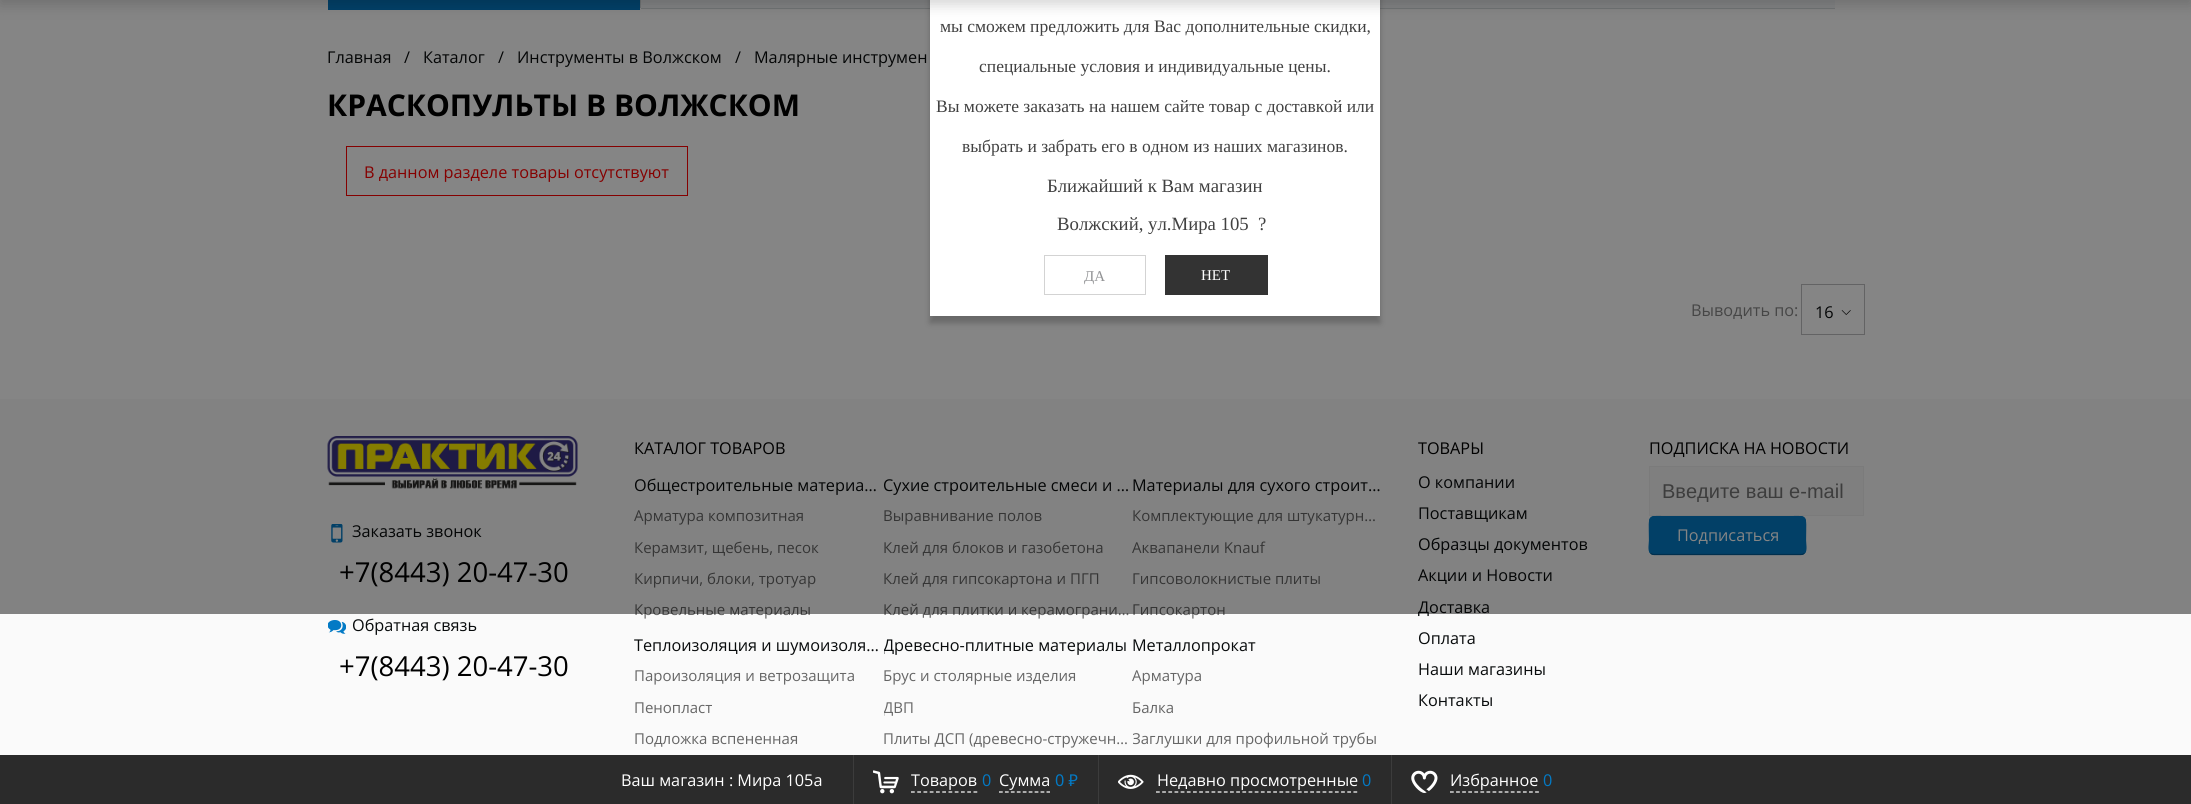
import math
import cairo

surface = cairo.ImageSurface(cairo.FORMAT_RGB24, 2191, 804)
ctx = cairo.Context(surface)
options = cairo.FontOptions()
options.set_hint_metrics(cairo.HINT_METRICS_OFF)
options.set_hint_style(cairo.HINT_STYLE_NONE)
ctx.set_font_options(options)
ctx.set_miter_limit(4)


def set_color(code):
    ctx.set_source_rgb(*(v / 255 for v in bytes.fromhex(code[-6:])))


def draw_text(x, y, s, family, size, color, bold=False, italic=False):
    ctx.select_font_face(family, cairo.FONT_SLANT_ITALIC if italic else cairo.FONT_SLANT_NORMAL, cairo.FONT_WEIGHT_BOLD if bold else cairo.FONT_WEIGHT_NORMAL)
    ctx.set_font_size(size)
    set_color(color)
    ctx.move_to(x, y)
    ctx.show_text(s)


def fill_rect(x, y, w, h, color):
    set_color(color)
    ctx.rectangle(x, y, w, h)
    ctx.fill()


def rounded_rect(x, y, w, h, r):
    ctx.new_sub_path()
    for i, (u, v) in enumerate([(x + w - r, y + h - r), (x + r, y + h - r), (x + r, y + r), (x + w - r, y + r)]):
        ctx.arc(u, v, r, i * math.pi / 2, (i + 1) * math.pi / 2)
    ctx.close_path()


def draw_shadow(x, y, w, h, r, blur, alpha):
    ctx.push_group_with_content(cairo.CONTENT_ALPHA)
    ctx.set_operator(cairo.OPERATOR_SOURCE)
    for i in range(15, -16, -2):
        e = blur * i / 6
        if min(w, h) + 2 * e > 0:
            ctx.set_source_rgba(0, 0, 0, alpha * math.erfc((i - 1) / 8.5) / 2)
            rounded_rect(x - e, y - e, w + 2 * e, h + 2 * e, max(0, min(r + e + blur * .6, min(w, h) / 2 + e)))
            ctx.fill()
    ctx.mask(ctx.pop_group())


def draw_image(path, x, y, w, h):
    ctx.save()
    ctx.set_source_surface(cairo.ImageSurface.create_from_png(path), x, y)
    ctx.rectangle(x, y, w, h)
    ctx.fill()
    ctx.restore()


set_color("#ffffff")
ctx.paint()
fill_rect(328, 0, 312, 10, "#037ac5")
set_color("#f8fafc")
ctx.new_path()
ctx.move_to(642.5, -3)
ctx.line_to(1835, -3)
ctx.line_to(1835, 9)
ctx.line_to(642.5, 9)
ctx.curve_to(641, 9, 640, 8, 640, 6.5)
ctx.line_to(640, -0.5)
ctx.curve_to(640, -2, 641, -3, 642.5, -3)
ctx.close_path()
ctx.fill()
fill_rect(641, 8, 1194, 1, "#d5dadc")
fill_rect(640, 0, 1, 8, "#d5dadc")
draw_text(327, 63, "Главная", "Open Sans", 16.25, "#080b0c")
draw_text(404, 63, "/", "Open Sans", 16.25, "#080b0c")
draw_text(423, 63, "Каталог", "Open Sans", 16.25, "#080b0c")
draw_text(498, 63, "/", "Open Sans", 16.25, "#080b0c")
draw_text(517, 63, "Инструменты в Волжском", "Open Sans", 16.25, "#080b0c")
draw_text(735, 63, "/", "Open Sans", 16.25, "#080b0c")
draw_text(754, 63, "Малярные инструмен", "Open Sans", 16.25, "#080b0c")
draw_text(327, 116, "КРАСКОПУЛЬТЫ В ВОЛЖСКОМ", "Open Sans", 30, "#000000", bold=True)
ctx.rectangle(346.5, 146.5, 341, 49)
set_color("#ff0000")
ctx.set_line_width(1)
ctx.stroke()
draw_text(364, 178, "В данном разделе товары отсутствуют", "Open Sans", 16.25, "#ff0000")
draw_text(1691, 316, "Выводить по:", "Open Sans", 16.25, "#878787")
ctx.rectangle(1801.5, 284.5, 63, 50)
set_color("#bdbec0")
ctx.stroke()
draw_text(1815, 318, "16", "Open Sans", 16.25, "#080b0c")
draw_image("assets/img1.png", 1841, 310, 10, 5)
fill_rect(0, 399, 2191, 356, "#fafafa")
draw_text(634, 454, "КАТАЛОГ ТОВАРОВ", "Open Sans", 16.25, "#000000")
draw_text(634, 491, "Общестроительные материа…", "Open Sans", 16.25, "#080b0c")
draw_text(634, 521, "Арматура композитная", "Open Sans", 15, "#666666")
draw_text(634, 553, "Керамзит, щебень, песок", "Open Sans", 15, "#666666")
draw_text(634, 584, "Кирпичи, блоки, тротуар", "Open Sans", 15, "#666666")
draw_text(634, 615, "Кровельные материалы", "Open Sans", 15, "#666666")
draw_text(883, 491, "Сухие строительные смеси и …", "Open Sans", 16.25, "#080b0c")
draw_text(883, 521, "Выравнивание полов", "Open Sans", 15, "#666666")
draw_text(883, 553, "Клей для блоков и газобетона", "Open Sans", 15, "#666666")
draw_text(883, 584, "Клей для гипсокартона и ПГП", "Open Sans", 15, "#666666")
draw_text(883, 615, "Клей для плитки и керамограни…", "Open Sans", 15, "#666666")
draw_text(1132, 491, "Материалы для сухого строит…", "Open Sans", 16.25, "#080b0c")
draw_text(1132, 521, "Комплектующие для штукатурн…", "Open Sans", 15, "#666666")
draw_text(1132, 553, "Аквапанели Knauf", "Open Sans", 15, "#666666")
draw_text(1132, 584, "Гипсоволокнистые плиты", "Open Sans", 15, "#666666")
draw_text(1132, 615, "Гипсокартон", "Open Sans", 15, "#666666")
draw_text(1418, 454, "ТОВАРЫ", "Open Sans", 16.25, "#000000")
draw_text(1418, 488, "О компании", "Open Sans", 16.25, "#080b0c")
draw_text(1418, 519, "Поставщикам", "Open Sans", 16.25, "#080b0c")
draw_text(1418, 550, "Образцы документов", "Open Sans", 16.25, "#080b0c")
draw_text(1418, 581, "Акции и Новости", "Open Sans", 16.25, "#080b0c")
draw_text(1418, 613, "Доставка", "Open Sans", 16.25, "#080b0c")
draw_text(1649, 454, "ПОДПИСКА НА НОВОСТИ", "Open Sans", 16.25, "#000000")
set_color("#f3f3f3")
ctx.rectangle(1649.5, 466.5, 214, 49)
ctx.fill_preserve()
set_color("#ebebeb")
ctx.stroke()
draw_text(1662, 498, "Введите ваш e-mail", "Liberation Sans", 20, "#757575")
set_color("#037ac5")
rounded_rect(1649, 516, 157, 39, 5)
ctx.fill()
ctx.new_path()
ctx.move_to(1804.5, 553)
ctx.curve_to(1803.5, 554, 1802.5, 554.5, 1801, 554.5)
ctx.line_to(1654, 554.5)
ctx.curve_to(1652.5, 554.5, 1651.5, 554, 1650.5, 553)
set_color("#025b93")
ctx.set_line_width(1.2)
ctx.stroke()
ctx.new_path()
ctx.move_to(1650.5, 553)
ctx.curve_to(1648, 550.5, 1649.5, 543.5, 1649.5, 540.5)
ctx.curve_to(1649.5, 511, 1645, 517, 1678.5, 517)
ctx.line_to(1776.5, 517)
ctx.curve_to(1810, 517, 1805.5, 511, 1805.5, 540.5)
ctx.curve_to(1805.5, 543.5, 1807, 550.5, 1804.5, 553)
set_color("#037ac5")
ctx.stroke()
draw_text(1677, 541, "Подписаться", "Open Sans", 16.25, "#ffffff")
draw_image("assets/img2.png", 327, 436, 251, 53)
draw_image("assets/img3.png", 331, 524, 12, 19)
draw_text(352, 537, "Заказать звонок", "Open Sans", 16.25, "#080b0c")
draw_text(339, 582, "+7(8443) 20-47-30", "Open Sans", 27.5, "#000000")
ctx.set_source_rgba(0, 0, 0, 0.48)
ctx.rectangle(0, 0, 2191, 614)
ctx.fill()
set_color("#000000")
draw_shadow(930, -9, 450, 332, 0, 3, 0.22)
fill_rect(930, 0, 450, 316, "#ffffff")
set_color("#000000")
draw_shadow(0, -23, 2191, 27, 0, 7.5, 0.18)
draw_text(940, 32, "мы сможем предложить для Вас дополнительные скидки,", "Liberation Serif", 17.5, "#414141")
draw_text(979, 72, "специальные условия и индивидуальные цены.", "Liberation Serif", 17.5, "#414141")
draw_text(936, 112, "Вы можете заказать на нашем сайте товар с доставкой или", "Liberation Serif", 17.5, "#414141")
draw_text(962, 152, "выбрать и забрать его в одном из наших магазинов.", "Liberation Serif", 17.5, "#414141")
draw_text(1047, 192, "Ближайший к Вам магазин", "Liberation Serif", 18.75, "#414141")
draw_text(1057, 230, "Волжский, ул.Мира 105  ?", "Liberation Serif", 18.75, "#414141")
ctx.rectangle(1044.5, 255.5, 101, 39)
set_color("#d3d3d3")
ctx.set_line_width(1)
ctx.stroke()
draw_text(1084, 281, "ДА", "Liberation Serif", 15, "#919294")
fill_rect(1165, 255, 103, 40, "#333333")
draw_text(1201, 280, "НЕТ", "Liberation Serif", 15, "#ffffff")
draw_text(634, 651, "Теплоизоляция и шумоизоля…", "Open Sans", 16.25, "#080b0c")
draw_text(634, 681, "Пароизоляция и ветрозащита", "Open Sans", 15, "#666666")
draw_text(634, 713, "Пенопласт", "Open Sans", 15, "#666666")
draw_text(634, 744, "Подложка вспененная", "Open Sans", 15, "#666666")
ctx.save()
ctx.rectangle(884, 634, 249, 22)
ctx.clip()
draw_text(883, 651, "Древесно-плитные материалы", "Open Sans", 16.25, "#080b0c")
ctx.restore()
draw_text(883, 681, "Брус и столярные изделия", "Open Sans", 15, "#666666")
ctx.save()
ctx.rectangle(884, 696, 249, 23)
ctx.clip()
draw_text(883, 713, "ДВП", "Open Sans", 15, "#666666")
ctx.restore()
draw_text(883, 744, "Плиты ДСП (древесно-стружечн…", "Open Sans", 15, "#666666")
draw_text(1132, 651, "Металлопрокат", "Open Sans", 16.25, "#080b0c")
draw_text(1132, 681, "Арматура", "Open Sans", 15, "#666666")
draw_text(1132, 713, "Балка", "Open Sans", 15, "#666666")
ctx.save()
ctx.rectangle(1133, 728, 248, 22)
ctx.clip()
draw_text(1132, 744, "Заглушки для профильной трубы", "Open Sans", 15, "#666666")
ctx.restore()
draw_text(1418, 644, "Оплата", "Open Sans", 16.25, "#080b0c")
draw_text(1418, 675, "Наши магазины", "Open Sans", 16.25, "#080b0c")
draw_text(1418, 706, "Контакты", "Open Sans", 16.25, "#080b0c")
draw_image("assets/img4.png", 328, 620, 18, 14)
draw_text(352, 631, "Обратная связь", "Open Sans", 16.25, "#080b0c")
draw_text(339, 676, "+7(8443) 20-47-30", "Open Sans", 27.5, "#000000")
fill_rect(0, 755, 2191, 49, "#2b2b2b")
draw_text(621, 786, "Ваш магазин : Мира 105а", "Open Sans", 16.25, "#ffffff")
fill_rect(853, 755, 1, 49, "#3c3c3c")
draw_image("assets/img5.png", 873, 770, 26, 24)
draw_text(911, 786, "Товаров", "Open Sans", 16.25, "#ffffff")
ctx.new_path()
ctx.move_to(911, 792)
ctx.line_to(977.5, 792)
ctx.set_line_width(1.2)
ctx.set_dash([3.75, 2.5])
ctx.stroke()
draw_text(982, 786, "0", "Open Sans", 16.25, "#037ac5")
draw_text(999, 786, "Сумма", "Open Sans", 16.25, "#ffffff")
ctx.new_path()
ctx.move_to(999, 792)
ctx.line_to(1050, 792)
ctx.set_dash([3.75, 2.19])
ctx.stroke()
draw_text(1055, 786, "0 ₽", "Noto Sans", 16.25, "#037ac5")
fill_rect(1098, 755, 1, 49, "#3c3c3c")
draw_image("assets/img6.png", 1118, 774, 26, 15)
draw_text(1157, 786, "Недавно просмотренные", "Open Sans", 16.25, "#ffffff")
ctx.new_path()
ctx.move_to(1156, 792)
ctx.line_to(1357.5, 792)
ctx.set_dash([3.75, 2.42])
ctx.stroke()
draw_text(1362, 786, "0", "Open Sans", 16.25, "#037ac5")
fill_rect(1391, 755, 1, 49, "#3c3c3c")
draw_image("assets/img7.png", 1411, 770, 27, 23)
draw_text(1450, 786, "Избранное", "Open Sans", 16.25, "#ffffff")
ctx.new_path()
ctx.move_to(1450, 792)
ctx.line_to(1539, 792)
ctx.set_dash([3.75, 2.33])
ctx.stroke()
draw_text(1543, 786, "0", "Open Sans", 16.25, "#037ac5")
surface.write_to_png("output.png")
